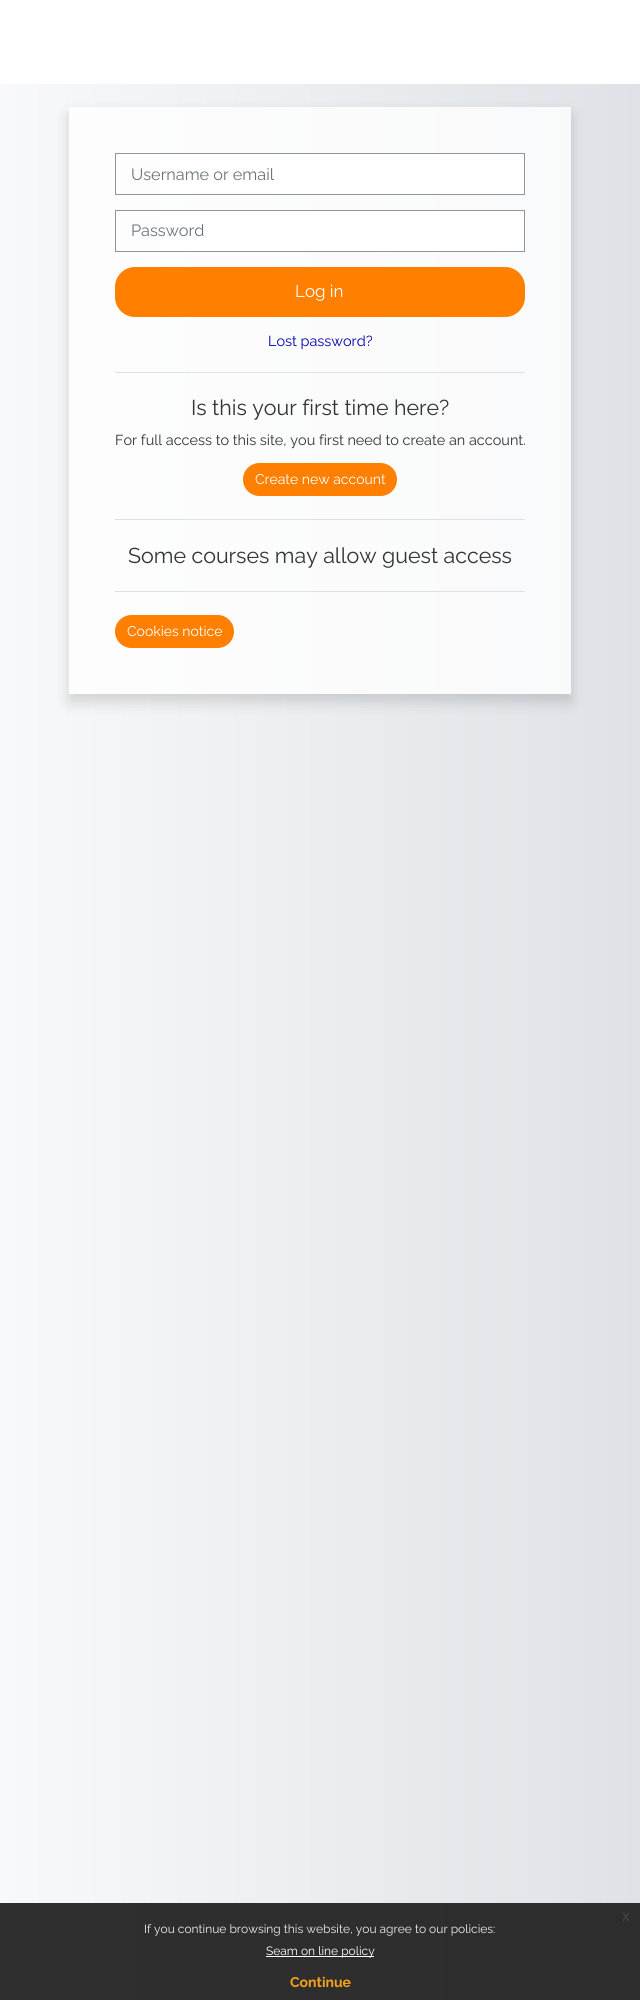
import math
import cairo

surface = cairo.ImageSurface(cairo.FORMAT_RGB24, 640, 2000)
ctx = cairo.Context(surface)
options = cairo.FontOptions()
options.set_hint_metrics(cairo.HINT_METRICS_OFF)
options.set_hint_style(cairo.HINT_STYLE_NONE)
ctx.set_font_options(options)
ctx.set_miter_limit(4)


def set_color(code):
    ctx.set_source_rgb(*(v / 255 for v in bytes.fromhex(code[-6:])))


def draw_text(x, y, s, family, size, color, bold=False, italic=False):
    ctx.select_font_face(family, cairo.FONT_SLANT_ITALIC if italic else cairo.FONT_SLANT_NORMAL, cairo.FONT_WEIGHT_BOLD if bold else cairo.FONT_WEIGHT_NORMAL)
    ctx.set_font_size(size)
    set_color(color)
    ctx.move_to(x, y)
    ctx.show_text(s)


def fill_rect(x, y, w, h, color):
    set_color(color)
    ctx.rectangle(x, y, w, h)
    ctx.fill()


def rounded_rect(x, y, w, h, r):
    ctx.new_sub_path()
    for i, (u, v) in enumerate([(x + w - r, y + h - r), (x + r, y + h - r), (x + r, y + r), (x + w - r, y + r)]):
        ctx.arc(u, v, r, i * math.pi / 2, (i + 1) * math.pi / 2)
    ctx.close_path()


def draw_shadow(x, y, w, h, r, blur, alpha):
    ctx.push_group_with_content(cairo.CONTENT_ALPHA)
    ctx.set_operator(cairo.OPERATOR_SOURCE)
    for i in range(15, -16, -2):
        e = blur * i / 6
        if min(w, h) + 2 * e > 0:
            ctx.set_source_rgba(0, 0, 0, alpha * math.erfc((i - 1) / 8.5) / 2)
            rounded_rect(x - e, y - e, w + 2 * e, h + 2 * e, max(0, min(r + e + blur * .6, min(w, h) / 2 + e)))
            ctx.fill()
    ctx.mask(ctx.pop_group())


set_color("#ffffff")
ctx.paint()
gradient = cairo.LinearGradient(0, 1042, 640, 1042)
gradient.add_color_stop_rgba(0, 0.973, 0.976, 0.98, 1)
gradient.add_color_stop_rgba(1, 0.871, 0.886, 0.902, 1)
ctx.set_source(gradient)
ctx.rectangle(0, 84, 640, 1819)
ctx.fill()
gradient = cairo.LinearGradient(0, 1042, 640, 1042)
gradient.add_color_stop_rgba(0, 0.184, 0.184, 0.184, 1)
gradient.add_color_stop_rgba(1, 0.176, 0.176, 0.18, 1)
ctx.set_source(gradient)
ctx.rectangle(0, 1903, 640, 97)
ctx.fill()
gradient = cairo.LinearGradient(0, 1042, 640, 1042)
gradient.add_color_stop_rgba(0, 0.996, 0.996, 0.996, 1)
gradient.add_color_stop_rgba(1, 0.973, 0.976, 0.98, 1)
ctx.set_source(gradient)
ctx.rectangle(69, 107, 502, 587)
ctx.fill()
ctx.save()
ctx.set_fill_rule(cairo.FILL_RULE_EVEN_ODD)
ctx.new_path()
ctx.move_to(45, 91)
ctx.line_to(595, 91)
ctx.line_to(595, 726)
ctx.line_to(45, 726)
ctx.close_path()
ctx.move_to(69, 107)
ctx.line_to(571, 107)
ctx.line_to(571, 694)
ctx.line_to(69, 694)
ctx.close_path()
ctx.clip()
set_color("#000000")
draw_shadow(69, 115, 502, 587, 0, 7.5, 0.15)
ctx.restore()
fill_rect(160, 154, 364, 40, "#ffffff")
ctx.rectangle(115.5, 153.5, 409, 41)
set_color("#8f959e")
ctx.set_line_width(1)
ctx.stroke()
draw_text(131, 180, "Username or email", "Raleway", 16.25, "#6a737b")
fill_rect(160, 211, 364, 40, "#ffffff")
ctx.rectangle(115.5, 210.5, 409, 41)
set_color("#8f959e")
ctx.stroke()
draw_text(131, 236, "Password", "Raleway", 16.25, "#6a737b")
set_color("#ff8000")
rounded_rect(115, 267, 410, 50, 20)
ctx.fill()
draw_text(295, 297, "Log in", "Raleway", 17, "#ffffff")
draw_text(268, 346, "Lost password?", "Raleway", 14.45, "#0000aa")
fill_rect(115, 372, 410, 1, "#dee2e6")
draw_text(191, 415, "Is this your first time here?", "Raleway", 21.4, "#333333")
draw_text(115, 445, "For full access to this site, you first need to create an account.", "Raleway", 14.45, "#333333")
set_color("#ff8000")
rounded_rect(243, 463, 154, 33, 16.5)
ctx.fill()
draw_text(255, 484, "Create new account", "Raleway", 14, "#ffffff")
fill_rect(115, 519, 410, 1, "#dee2e6")
draw_text(128, 563, "Some courses may allow guest access", "Raleway", 21.4, "#333333")
fill_rect(115, 591, 410, 1, "#dee2e6")
set_color("#ff8000")
rounded_rect(115, 615, 119, 33, 16.5)
ctx.fill()
draw_text(127, 636, "Cookies notice", "Raleway", 14, "#ffffff")
draw_text(622, 1921, "x", "Liberation Sans", 16, "#444545")
draw_text(144, 1933, "If you continue browsing this website, you agree to our policies:", "Raleway", 12, "#efefef")
fill_rect(266, 1956, 108, 1, "#ffffff")
draw_text(266, 1955, "Seam on line policy", "Raleway", 12, "#ffffff")
draw_text(290, 1987, "Continue", "Raleway", 14, "#f6a21d", bold=True)
surface.write_to_png("output.png")
